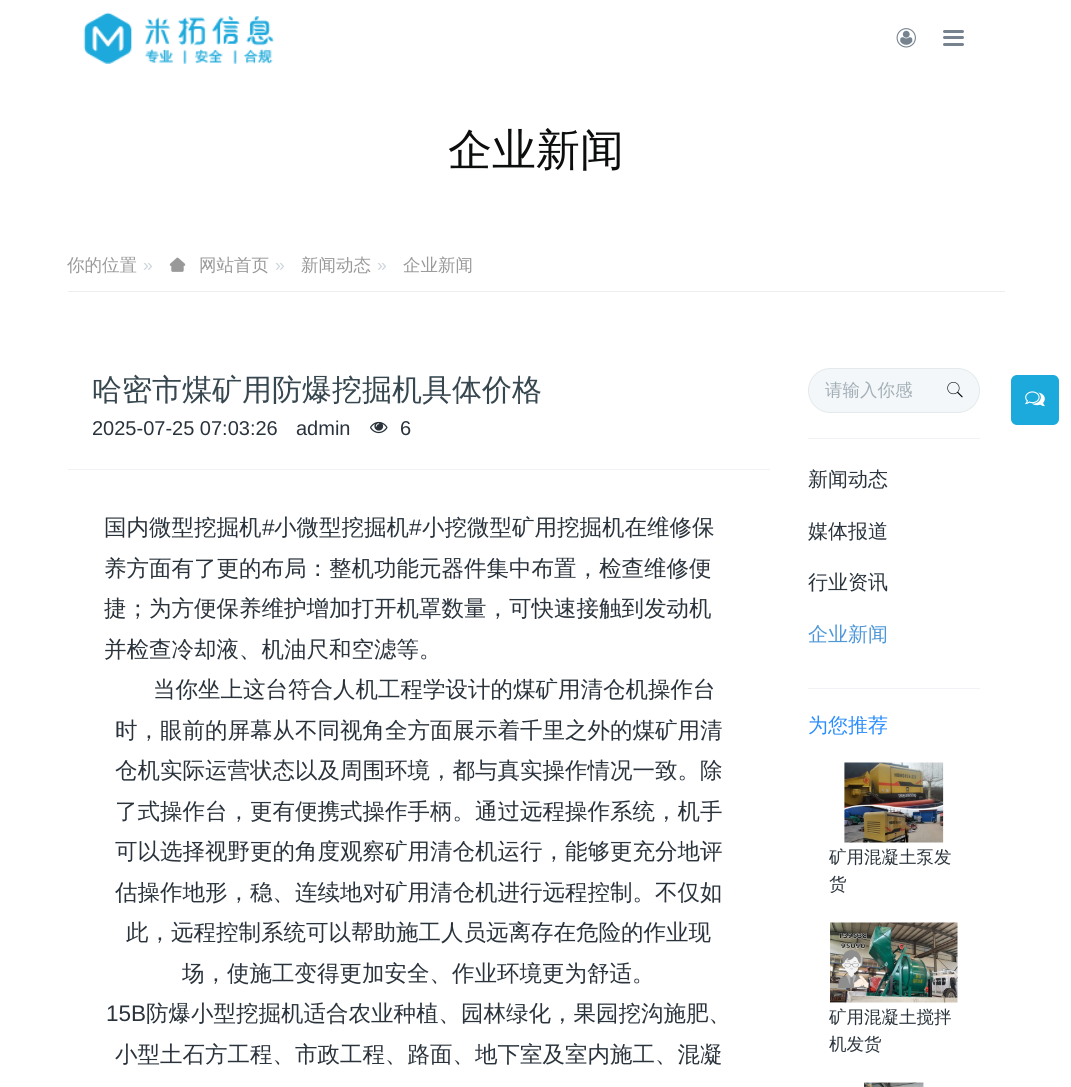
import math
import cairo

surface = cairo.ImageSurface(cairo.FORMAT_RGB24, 1071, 1087)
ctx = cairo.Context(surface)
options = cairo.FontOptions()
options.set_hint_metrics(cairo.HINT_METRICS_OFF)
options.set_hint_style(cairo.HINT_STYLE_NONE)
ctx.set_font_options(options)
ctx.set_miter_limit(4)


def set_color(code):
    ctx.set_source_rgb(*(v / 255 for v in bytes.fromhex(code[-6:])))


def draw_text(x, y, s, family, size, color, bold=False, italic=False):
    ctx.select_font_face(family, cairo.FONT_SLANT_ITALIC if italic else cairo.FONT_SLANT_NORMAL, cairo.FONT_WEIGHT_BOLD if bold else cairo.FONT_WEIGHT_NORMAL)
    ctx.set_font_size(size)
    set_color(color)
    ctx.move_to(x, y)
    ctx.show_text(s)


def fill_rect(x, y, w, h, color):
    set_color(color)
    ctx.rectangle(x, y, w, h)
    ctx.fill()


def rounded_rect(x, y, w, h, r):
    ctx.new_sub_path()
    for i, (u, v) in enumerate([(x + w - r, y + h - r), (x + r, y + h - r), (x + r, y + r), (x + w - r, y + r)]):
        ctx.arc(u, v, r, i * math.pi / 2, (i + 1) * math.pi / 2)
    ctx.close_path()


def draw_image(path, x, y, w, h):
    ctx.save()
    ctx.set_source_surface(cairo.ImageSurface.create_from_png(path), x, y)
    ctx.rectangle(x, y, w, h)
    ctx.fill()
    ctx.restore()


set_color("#ffffff")
ctx.paint()
draw_image("assets/img1.png", 83, 12, 191, 52)
draw_image("assets/img2.png", 896, 28, 20, 20)
set_color("#76838f")
rounded_rect(943, 30, 21, 3, 1.5)
ctx.fill()
rounded_rect(943, 36, 21, 3, 1.5)
ctx.fill()
rounded_rect(943, 43, 21, 3, 1.5)
ctx.fill()
draw_text(448, 165, "企业新闻", "WenQuanYi Zen Hei Medium", 44, "#0c0d0d")
fill_rect(68, 291, 937, 1, "#eeeeee")
draw_text(67, 271, "你的位置", "WenQuanYi Zen Hei Medium", 17.5, "#999999")
draw_text(143, 271, "»", "Liberation Sans", 17.5, "#ccd5db")
draw_image("assets/img3.png", 169, 257, 17, 15)
draw_text(199, 271, "网站首页", "WenQuanYi Zen Hei Medium", 17.5, "#999999")
draw_text(275, 271, "»", "Liberation Sans", 17.5, "#ccd5db")
draw_text(301, 271, "新闻动态", "WenQuanYi Zen Hei Medium", 17.5, "#999999")
draw_text(377, 271, "»", "Liberation Sans", 17.5, "#ccd5db")
draw_text(403, 271, "企业新闻", "WenQuanYi Zen Hei Medium", 17.5, "#999999")
fill_rect(68, 469, 702, 1, "#f0f2f5")
draw_text(92, 400, "哈密市煤矿用防爆挖掘机具体价格", "WenQuanYi Zen Hei Medium", 30, "#37474f")
draw_text(92, 435, "2025-07-25 07:03:26", "Liberation Sans", 20, "#2a333c")
draw_text(296, 435, "admin", "Liberation Sans", 20, "#2a333c")
draw_image("assets/img4.png", 370, 421, 18, 13)
draw_text(400, 435, "6", "Liberation Sans", 20, "#2a333c")
draw_text(104, 535, "国内微型挖掘机", "WenQuanYi Zen Hei Medium", 22.5, "#2a333c")
draw_text(262, 535, "#", "Liberation Sans", 22.5, "#2a333c")
draw_text(274, 535, "小微型挖掘机", "WenQuanYi Zen Hei Medium", 22.5, "#2a333c")
draw_text(409, 535, "#", "Liberation Sans", 22.5, "#2a333c")
draw_text(422, 535, "小挖微型矿用挖掘机在维修保", "WenQuanYi Zen Hei Medium", 22.5, "#2a333c")
draw_text(104, 576, "养方面有了更的布局：整机功能元器件集中布置，检查维修便", "WenQuanYi Zen Hei Medium", 22.5, "#2a333c")
draw_text(104, 616, "捷；为方便保养维护增加打开机罩数量，可快速接触到发动机", "WenQuanYi Zen Hei Medium", 22.5, "#2a333c")
draw_text(104, 657, "并检查冷却液、机油尺和空滤等。", "WenQuanYi Zen Hei Medium", 22.5, "#2a333c")
draw_text(153, 697, "当你坐上这台符合人机工程学设计的煤矿用清仓机操作台", "WenQuanYi Zen Hei Medium", 22.5, "#2a333c")
draw_text(115, 738, "时，眼前的屏幕从不同视角全方面展示着千里之外的煤矿用清", "WenQuanYi Zen Hei Medium", 22.5, "#2a333c")
draw_text(115, 778, "仓机实际运营状态以及周围环境，都与真实操作情况一致。除", "WenQuanYi Zen Hei Medium", 22.5, "#2a333c")
draw_text(115, 819, "了式操作台，更有便携式操作手柄。通过远程操作系统，机手", "WenQuanYi Zen Hei Medium", 22.5, "#2a333c")
draw_text(115, 859, "可以选择视野更的角度观察矿用清仓机运行，能够更充分地评", "WenQuanYi Zen Hei Medium", 22.5, "#2a333c")
draw_text(115, 900, "估操作地形，稳、连续地对矿用清仓机进行远程控制。不仅如", "WenQuanYi Zen Hei Medium", 22.5, "#2a333c")
draw_text(126, 940, "此，远程控制系统可以帮助施工人员远离存在危险的作业现", "WenQuanYi Zen Hei Medium", 22.5, "#2a333c")
draw_text(182, 981, "场，使施工变得更加安全、作业环境更为舒适。", "WenQuanYi Zen Hei Medium", 22.5, "#2a333c")
draw_text(106, 1021, "15B", "Liberation Sans", 22.5, "#2a333c")
draw_text(146, 1021, "防爆小型挖掘机适合农业种植、园林绿化，果园挖沟施肥、", "WenQuanYi Zen Hei Medium", 22.5, "#2a333c")
draw_text(115, 1062, "小型土石方工程、市政工程、路面、地下室及室内施工、混凝", "WenQuanYi Zen Hei Medium", 22.5, "#2a333c")
set_color("#f3f7f9")
rounded_rect(808.5, 368.5, 171, 44, 22)
ctx.fill_preserve()
set_color("#e4eaec")
ctx.set_line_width(1)
ctx.stroke()
draw_text(825, 396, "请输入你感", "WenQuanYi Zen Hei Medium", 17.5, "#a3afb7")
draw_image("assets/img5.png", 947, 382, 16, 16)
fill_rect(808, 438, 172, 1, "#f0f2f5")
draw_text(808, 486, "新闻动态", "WenQuanYi Zen Hei Medium", 20, "#2a333c")
draw_text(808, 538, "媒体报道", "WenQuanYi Zen Hei Medium", 20, "#2a333c")
draw_text(808, 589, "行业资讯", "WenQuanYi Zen Hei Medium", 20, "#2a333c")
draw_text(808, 641, "企业新闻", "WenQuanYi Zen Hei Medium", 20, "#4e97d9")
fill_rect(808, 688, 172, 1, "#f0f2f5")
draw_text(808, 732, "为您推荐", "WenQuanYi Zen Hei Medium", 20, "#298dff")
draw_image("assets/img6.png", 844, 762, 100, 81)
draw_text(829, 863, "矿用混凝土泵发", "WenQuanYi Zen Hei Medium", 17.5, "#2a333c")
draw_text(829, 890, "货", "WenQuanYi Zen Hei Medium", 17.5, "#2a333c")
draw_image("assets/img7.png", 830, 922, 128, 81)
draw_text(829, 1023, "矿用混凝土搅拌", "WenQuanYi Zen Hei Medium", 17.5, "#2a333c")
draw_text(829, 1050, "机发货", "WenQuanYi Zen Hei Medium", 17.5, "#2a333c")
draw_image("assets/img8.png", 864, 1082, 60, 5)
set_color("#1baadb")
rounded_rect(1011, 375, 48, 50, 6)
ctx.fill()
draw_image("assets/img9.png", 1025, 391, 20, 16)
surface.write_to_png("output.png")
